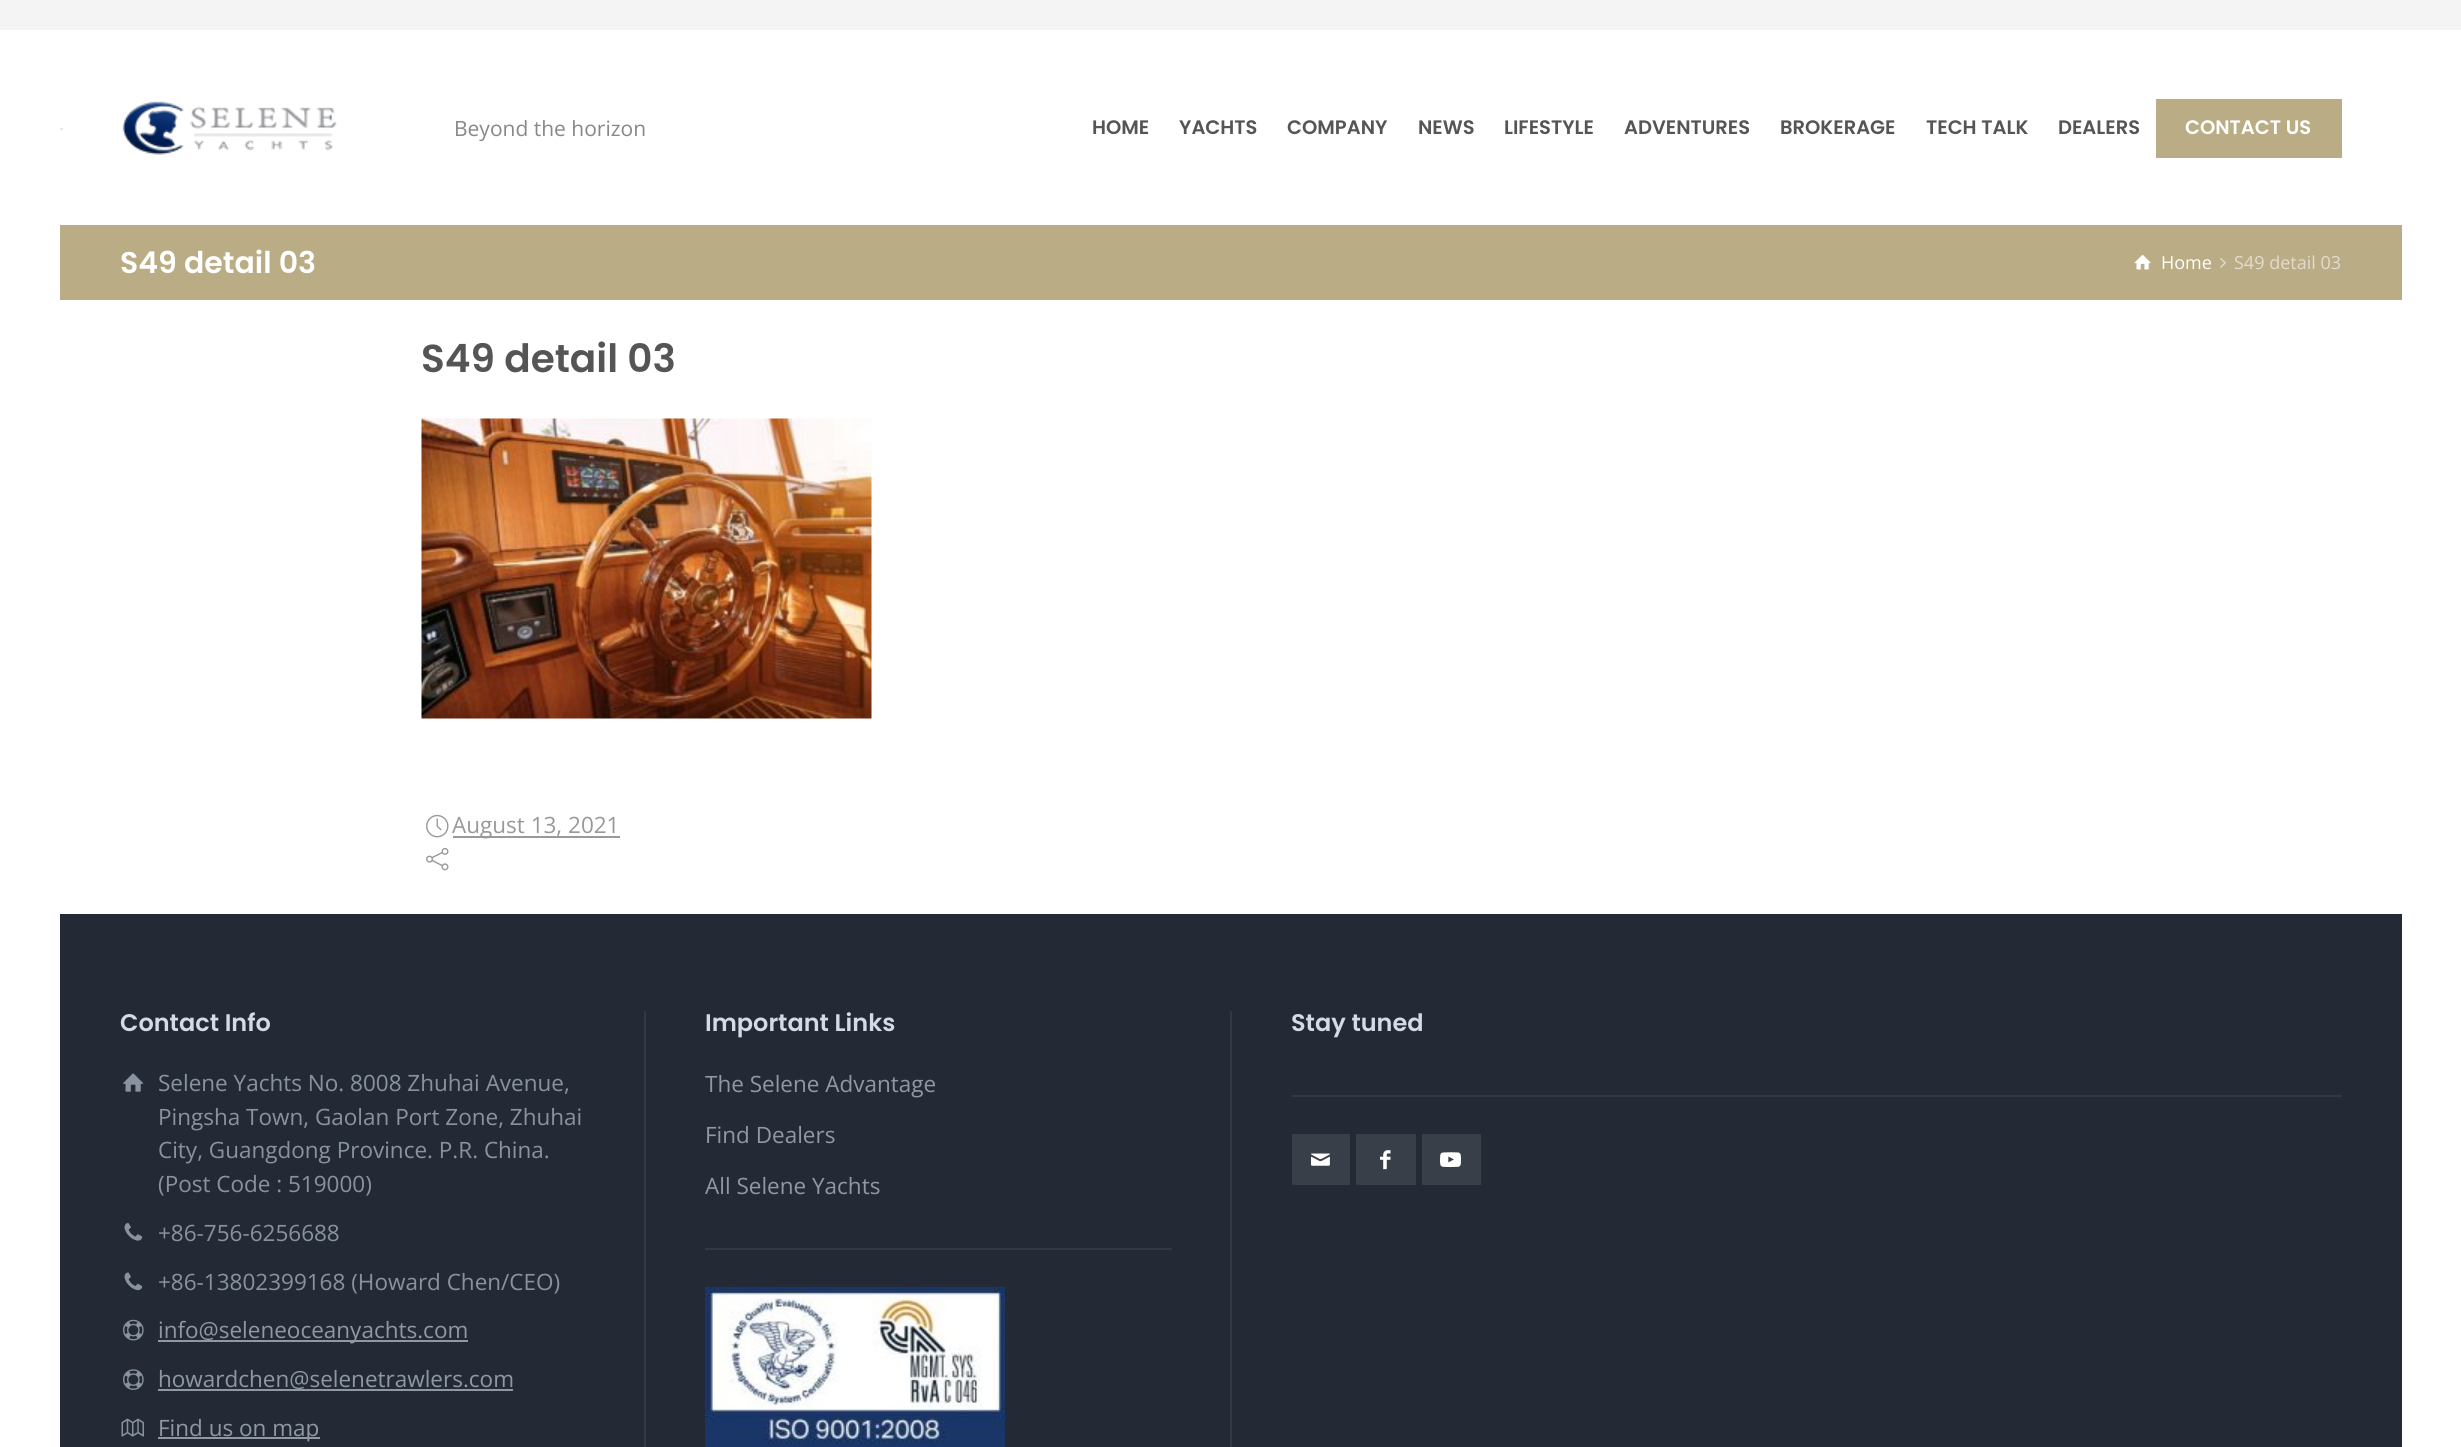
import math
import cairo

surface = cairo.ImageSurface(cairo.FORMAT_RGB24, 2461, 1447)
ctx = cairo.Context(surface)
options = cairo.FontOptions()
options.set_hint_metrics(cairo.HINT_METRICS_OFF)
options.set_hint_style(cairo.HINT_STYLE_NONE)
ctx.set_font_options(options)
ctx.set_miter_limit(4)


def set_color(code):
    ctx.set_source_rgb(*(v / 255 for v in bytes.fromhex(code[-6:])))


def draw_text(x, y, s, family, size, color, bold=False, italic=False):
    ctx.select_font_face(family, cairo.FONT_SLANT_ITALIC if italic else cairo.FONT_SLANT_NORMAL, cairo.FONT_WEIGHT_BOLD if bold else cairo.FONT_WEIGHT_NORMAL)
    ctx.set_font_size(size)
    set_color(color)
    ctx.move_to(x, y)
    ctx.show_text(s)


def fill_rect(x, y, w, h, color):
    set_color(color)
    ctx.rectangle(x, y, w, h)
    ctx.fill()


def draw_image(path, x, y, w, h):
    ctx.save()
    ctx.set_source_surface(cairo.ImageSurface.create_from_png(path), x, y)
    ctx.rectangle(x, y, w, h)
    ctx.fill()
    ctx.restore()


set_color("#f4f4f4")
ctx.paint()
fill_rect(0, 30, 2461, 1417, "#ffffff")
fill_rect(60, 128, 3, 2, "#e9e9e9")
draw_image("assets/img1.png", 122, 101, 215, 54)
draw_text(454, 136, "Beyond the horizon", "Open Sans", 21, "#888888")
draw_text(1092, 134, "HOME", "Poppins SemiBold", 19.5, "#555555")
draw_text(1179, 134, "YACHTS", "Poppins SemiBold", 19.5, "#555555")
draw_text(1287, 134, "COMPANY", "Poppins SemiBold", 19.5, "#555555")
draw_text(1418, 134, "NEWS", "Poppins SemiBold", 19.5, "#555555")
draw_text(1504, 134, "LIFESTYLE", "Poppins SemiBold", 19.5, "#555555")
draw_text(1624, 134, "ADVENTURES", "Poppins SemiBold", 19.5, "#555555")
draw_text(1780, 134, "BROKERAGE", "Poppins SemiBold", 19.5, "#555555")
draw_text(1926, 134, "TECH TALK", "Poppins SemiBold", 19.5, "#555555")
draw_text(2058, 134, "DEALERS", "Poppins SemiBold", 19.5, "#555555")
fill_rect(2156, 99, 186, 59, "#baad85")
draw_text(2185, 134, "CONTACT US", "Poppins SemiBold", 19.5, "#ffffff")
fill_rect(60, 225, 2342, 75, "#baad85")
draw_text(120, 273, "S49 detail 03", "Poppins SemiBold", 30, "#ffffff")
draw_image("assets/img2.png", 2134, 255, 17, 15)
draw_text(2161, 269, "Home", "Open Sans", 18, "#ffffff")
draw_image("assets/img3.png", 2220, 258, 6, 10)
draw_text(2234, 269, "S49 detail 03", "Open Sans", 18, "#e3dbcd")
draw_text(421, 372, "S49 detail 03", "Poppins SemiBold", 39, "#555555")
draw_image("assets/img4.png", 421, 418, 451, 301)
draw_image("assets/img5.png", 426, 814, 23, 24)
fill_rect(453, 836, 167, 2, "#999999")
draw_text(452, 833, "August 13, 2021", "Open Sans", 22.5, "#999999")
draw_image("assets/img6.png", 426, 847, 23, 24)
fill_rect(60, 914, 2342, 533, "#232a35")
draw_text(120, 1031, "Contact Info", "Poppins SemiBold", 24, "#d5dbe4")
draw_image("assets/img7.png", 123, 1073, 21, 19)
draw_text(158, 1091, "Selene Yachts No. 8008 Zhuhai Avenue,", "Open Sans", 22.5, "#89939f")
draw_text(158, 1125, "Pingsha Town, Gaolan Port Zone, Zhuhai", "Open Sans", 22.5, "#89939f")
draw_text(158, 1158, "City, Guangdong Province. P.R. China.", "Open Sans", 22.5, "#89939f")
draw_text(158, 1192, "(Post Code : 519000)", "Open Sans", 22.5, "#89939f")
draw_image("assets/img8.png", 124, 1223, 19, 18)
draw_text(158, 1241, "+86-756-6256688", "Open Sans", 22.5, "#89939f")
draw_image("assets/img9.png", 124, 1272, 19, 19)
draw_text(158, 1290, "+86-13802399168 (Howard Chen/CEO)", "Open Sans", 22.5, "#89939f")
draw_image("assets/img10.png", 123, 1319, 21, 22)
fill_rect(158, 1340, 310, 2, "#8f98a4")
draw_text(158, 1338, "info@seleneoceanyachts.com", "Open Sans", 22.5, "#8f98a4")
draw_image("assets/img11.png", 123, 1369, 21, 21)
draw_text(158, 1387, "howardchen@selenetrawlers.com", "Open Sans", 22.5, "#8f98a4")
fill_rect(158, 1389, 355, 2, "#8f98a4")
draw_image("assets/img12.png", 121, 1418, 23, 19)
fill_rect(158, 1437, 162, 2, "#8f98a4")
draw_text(158, 1436, "Find us on map", "Open Sans", 22.5, "#8f98a4")
fill_rect(644, 1011, 2, 436, "#313946")
fill_rect(705, 1248, 467, 2, "#313946")
draw_text(705, 1031, "Important Links", "Poppins SemiBold", 24, "#d5dbe4")
draw_text(705, 1092, "The Selene Advantage", "Open Sans", 22.5, "#8f98a4")
draw_text(705, 1143, "Find Dealers", "Open Sans", 22.5, "#8f98a4")
draw_text(705, 1194, "All Selene Yachts", "Open Sans", 22.5, "#8f98a4")
draw_image("assets/img13.png", 705, 1287, 300, 160)
fill_rect(1230, 1011, 2, 436, "#313946")
fill_rect(1292, 1095, 1050, 2, "#313946")
draw_text(1291, 1031, "Stay tuned", "Poppins SemiBold", 24, "#d5dbe4")
fill_rect(1292, 1134, 58, 51, "#393f49")
draw_image("assets/img14.png", 1311, 1153, 19, 13)
fill_rect(1356, 1134, 60, 51, "#393f49")
draw_image("assets/img15.png", 1380, 1150, 11, 20)
fill_rect(1422, 1134, 59, 51, "#393f49")
draw_image("assets/img16.png", 1440, 1152, 21, 16)
surface.write_to_png("output.png")
